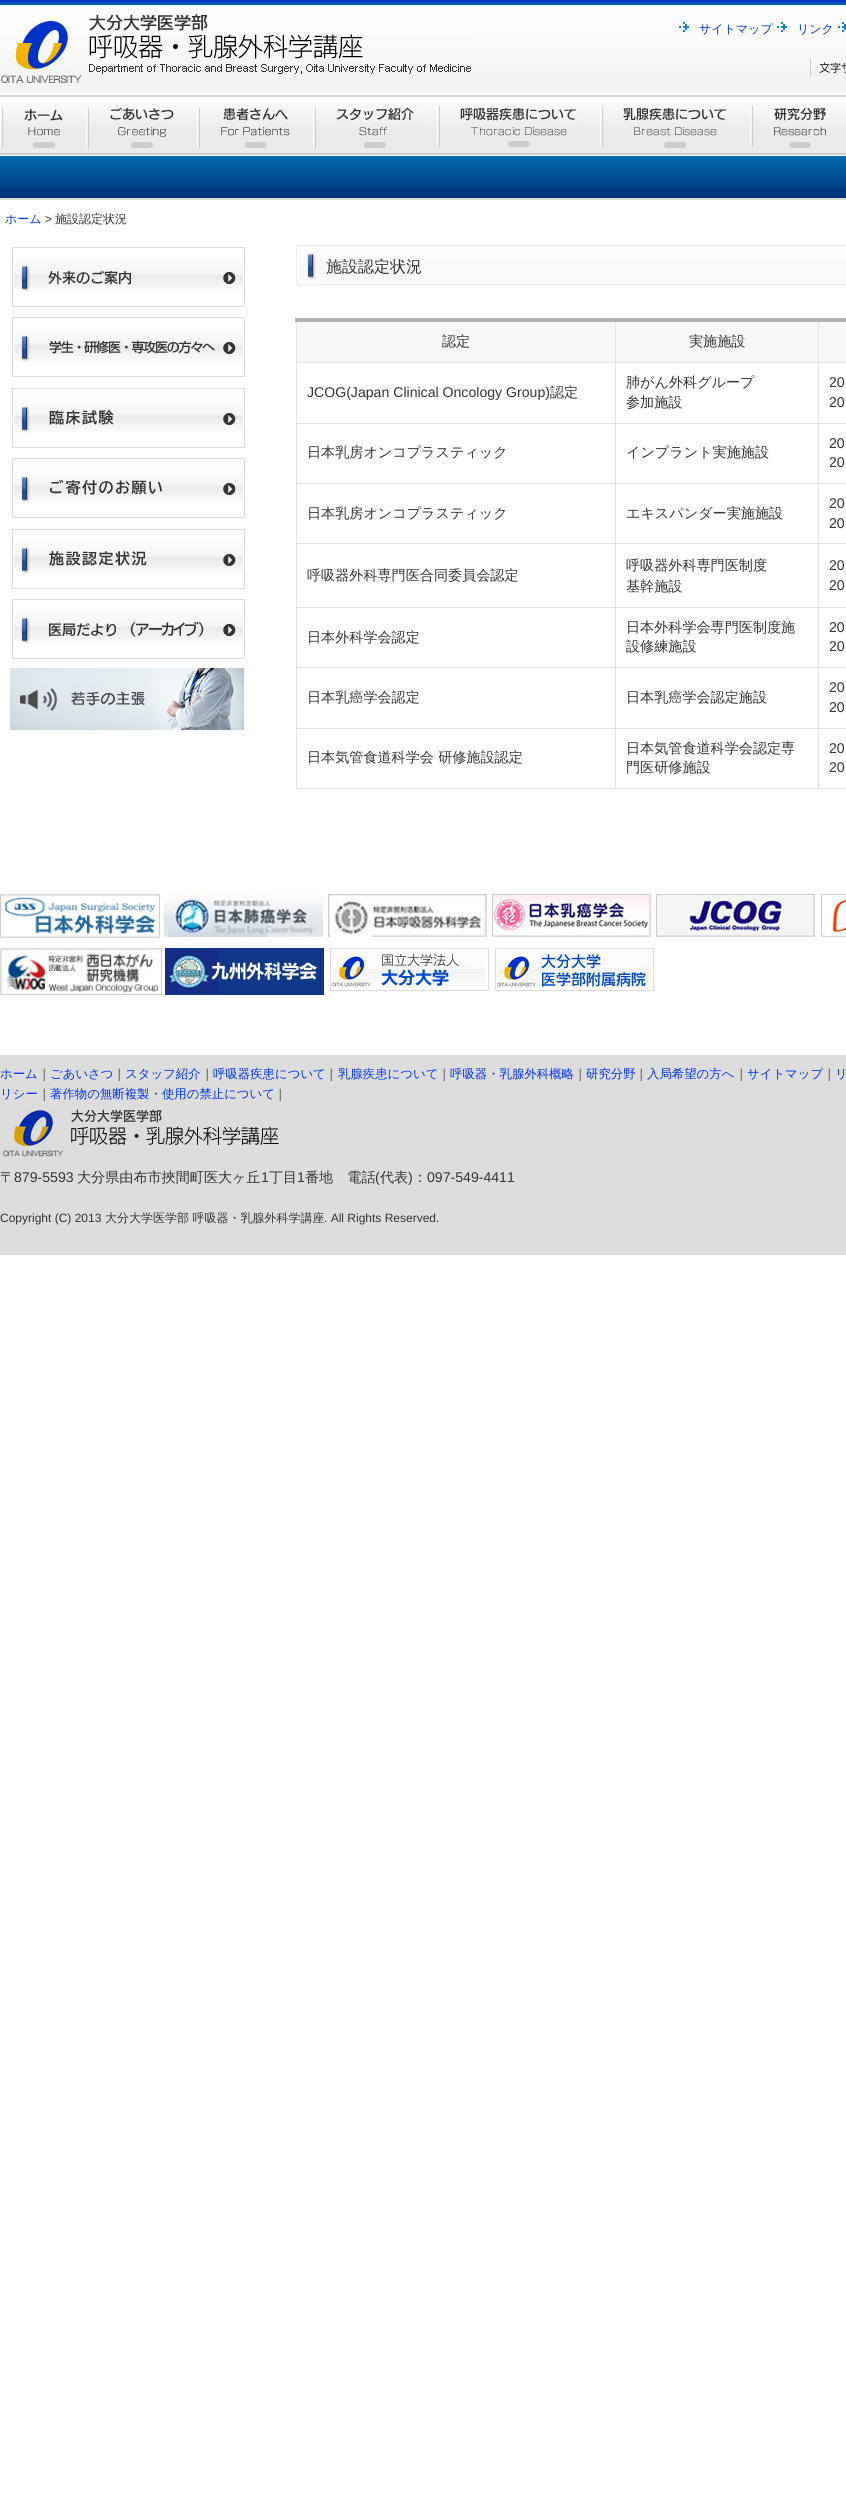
import math
import cairo

surface = cairo.ImageSurface(cairo.FORMAT_RGB24, 846, 2511)
ctx = cairo.Context(surface)
options = cairo.FontOptions()
options.set_hint_metrics(cairo.HINT_METRICS_OFF)
options.set_hint_style(cairo.HINT_STYLE_NONE)
ctx.set_font_options(options)
ctx.set_miter_limit(4)


def set_color(code):
    ctx.set_source_rgb(*(v / 255 for v in bytes.fromhex(code[-6:])))


def draw_text(x, y, s, family, size, color, bold=False, italic=False):
    ctx.select_font_face(family, cairo.FONT_SLANT_ITALIC if italic else cairo.FONT_SLANT_NORMAL, cairo.FONT_WEIGHT_BOLD if bold else cairo.FONT_WEIGHT_NORMAL)
    ctx.set_font_size(size)
    set_color(color)
    ctx.move_to(x, y)
    ctx.show_text(s)


def fill_rect(x, y, w, h, color):
    set_color(color)
    ctx.rectangle(x, y, w, h)
    ctx.fill()


def draw_image(path, x, y, w, h):
    ctx.save()
    ctx.set_source_surface(cairo.ImageSurface.create_from_png(path), x, y)
    ctx.rectangle(x, y, w, h)
    ctx.fill()
    ctx.restore()


set_color("#ffffff")
ctx.paint()
draw_image("assets/img1.png", 0, 0, 846, 200)
draw_image("assets/img2.png", 1, 14, 470, 69)
draw_image("assets/img3.png", 679, 22, 10, 10)
draw_text(699, 33, "サイトマップ", "WenQuanYi Zen Hei Medium", 12, "#0033ff")
draw_image("assets/img3.png", 777, 22, 10, 10)
draw_text(797, 33, "リンク", "WenQuanYi Zen Hei Medium", 12, "#0033ff")
draw_image("assets/img4.png", 838, 22, 8, 10)
draw_image("assets/img5.png", 810, 58, 36, 19)
draw_image("assets/img6.png", 0, 95, 87, 59)
draw_image("assets/img7.png", 87, 95, 110, 59)
draw_image("assets/img8.png", 197, 95, 116, 59)
draw_image("assets/img9.png", 313, 95, 124, 59)
draw_image("assets/img10.png", 437, 95, 163, 59)
draw_image("assets/img11.png", 600, 95, 150, 59)
draw_image("assets/img12.png", 750, 95, 96, 59)
draw_text(5, 223, "ホーム", "WenQuanYi Zen Hei Medium", 12, "#0033ff")
draw_text(45, 223, ">", "Liberation Sans", 12, "#333333")
draw_text(55, 223, "施設認定状況", "WenQuanYi Zen Hei Medium", 12, "#333333")
draw_image("assets/img13.png", 12, 247, 233, 60)
draw_image("assets/img14.png", 12, 317, 233, 60)
draw_image("assets/img15.png", 12, 388, 233, 60)
draw_image("assets/img16.png", 12, 458, 233, 60)
draw_image("assets/img17.png", 12, 529, 233, 60)
draw_image("assets/img18.png", 12, 599, 233, 60)
draw_image("assets/img19.png", 10, 668, 234, 62)
draw_image("assets/img20.png", 296, 245, 550, 42)
draw_text(326, 272, "施設認定状況", "WenQuanYi Zen Hei Medium", 16, "#333333")
fill_rect(819, 322, 27, 40, "#f7f7f7")
fill_rect(818, 788, 28, 1, "#e3e3e3")
fill_rect(818, 728, 1, 61, "#e3e3e3")
fill_rect(818, 728, 28, 1, "#e3e3e3")
fill_rect(818, 667, 1, 62, "#e3e3e3")
fill_rect(818, 667, 28, 1, "#e3e3e3")
fill_rect(818, 607, 1, 61, "#e3e3e3")
fill_rect(818, 607, 28, 1, "#e3e3e3")
fill_rect(818, 543, 1, 65, "#e3e3e3")
fill_rect(818, 543, 28, 1, "#e3e3e3")
fill_rect(818, 483, 1, 61, "#e3e3e3")
fill_rect(818, 483, 28, 1, "#e3e3e3")
fill_rect(818, 423, 1, 61, "#e3e3e3")
fill_rect(818, 423, 28, 1, "#e3e3e3")
fill_rect(818, 362, 1, 62, "#e3e3e3")
fill_rect(818, 362, 28, 1, "#e3e3e3")
fill_rect(818, 320, 1, 43, "#e3e3e3")
fill_rect(615, 788, 204, 1, "#e3e3e3")
fill_rect(615, 728, 1, 61, "#e3e3e3")
fill_rect(615, 728, 204, 1, "#e3e3e3")
fill_rect(615, 667, 1, 62, "#e3e3e3")
fill_rect(615, 667, 204, 1, "#e3e3e3")
fill_rect(615, 607, 1, 61, "#e3e3e3")
fill_rect(615, 607, 204, 1, "#e3e3e3")
fill_rect(615, 543, 1, 65, "#e3e3e3")
fill_rect(615, 543, 204, 1, "#e3e3e3")
fill_rect(615, 483, 1, 61, "#e3e3e3")
fill_rect(615, 483, 204, 1, "#e3e3e3")
fill_rect(615, 423, 1, 61, "#e3e3e3")
fill_rect(615, 423, 204, 1, "#e3e3e3")
fill_rect(615, 362, 1, 62, "#e3e3e3")
fill_rect(615, 362, 204, 1, "#e3e3e3")
fill_rect(615, 320, 1, 43, "#e3e3e3")
fill_rect(296, 788, 320, 1, "#e3e3e3")
fill_rect(296, 728, 1, 61, "#e3e3e3")
fill_rect(296, 728, 320, 1, "#e3e3e3")
fill_rect(296, 667, 1, 62, "#e3e3e3")
fill_rect(296, 667, 320, 1, "#e3e3e3")
fill_rect(296, 607, 1, 61, "#e3e3e3")
fill_rect(296, 607, 320, 1, "#e3e3e3")
fill_rect(296, 543, 1, 65, "#e3e3e3")
fill_rect(296, 543, 320, 1, "#e3e3e3")
fill_rect(296, 483, 1, 61, "#e3e3e3")
fill_rect(296, 483, 320, 1, "#e3e3e3")
fill_rect(296, 423, 1, 61, "#e3e3e3")
fill_rect(296, 423, 320, 1, "#e3e3e3")
fill_rect(296, 362, 1, 62, "#e3e3e3")
fill_rect(296, 362, 320, 1, "#e3e3e3")
fill_rect(296, 320, 1, 43, "#e3e3e3")
fill_rect(295, 318, 551, 4, "#b3b3b3")
fill_rect(297, 322, 318, 40, "#f7f7f7")
draw_text(442, 346, "認定", "WenQuanYi Zen Hei Medium", 14.1, "#333333")
fill_rect(616, 322, 202, 40, "#f7f7f7")
draw_text(689, 346, "実施施設", "WenQuanYi Zen Hei Medium", 14.1, "#333333")
draw_text(307, 397, "JCOG(Japan Clinical Oncology Group)", "Liberation Sans", 14.1, "#333333")
draw_text(550, 397, "認定", "WenQuanYi Zen Hei Medium", 14.1, "#333333")
draw_text(626, 387, "肺がん外科グループ", "WenQuanYi Zen Hei Medium", 14.1, "#333333")
draw_text(626, 407, "参加施設", "WenQuanYi Zen Hei Medium", 14.1, "#333333")
draw_text(829, 387, "20", "Liberation Sans", 14.1, "#333333")
draw_text(829, 407, "20", "Liberation Sans", 14.1, "#333333")
draw_text(307, 457, "日本乳房オンコプラスティック", "WenQuanYi Zen Hei Medium", 14.1, "#333333")
draw_text(626, 457, "インプラント実施施設", "WenQuanYi Zen Hei Medium", 14.1, "#333333")
draw_text(829, 448, "20", "Liberation Sans", 14.1, "#333333")
draw_text(829, 467, "20", "Liberation Sans", 14.1, "#333333")
draw_text(307, 518, "日本乳房オンコプラスティック", "WenQuanYi Zen Hei Medium", 14.1, "#333333")
draw_text(626, 518, "エキスパンダー実施施設", "WenQuanYi Zen Hei Medium", 14.1, "#333333")
draw_text(829, 508, "20", "Liberation Sans", 14.1, "#333333")
draw_text(829, 528, "20", "Liberation Sans", 14.1, "#333333")
draw_text(307, 580, "呼吸器外科専門医合同委員会認定", "WenQuanYi Zen Hei Medium", 14.1, "#333333")
draw_text(626, 570, "呼吸器外科専門医制度", "WenQuanYi Zen Hei Medium", 14.1, "#333333")
draw_text(626, 591, "基幹施設", "WenQuanYi Zen Hei Medium", 14.1, "#333333")
draw_text(829, 570, "20", "Liberation Sans", 14.1, "#333333")
draw_text(829, 590, "20", "Liberation Sans", 14.1, "#333333")
draw_text(307, 642, "日本外科学会認定", "WenQuanYi Zen Hei Medium", 14.1, "#333333")
draw_text(626, 632, "日本外科学会専門医制度施", "WenQuanYi Zen Hei Medium", 14.1, "#333333")
draw_text(626, 651, "設修練施設", "WenQuanYi Zen Hei Medium", 14.1, "#333333")
draw_text(829, 632, "20", "Liberation Sans", 14.1, "#333333")
draw_text(829, 651, "20", "Liberation Sans", 14.1, "#333333")
draw_text(307, 702, "日本乳癌学会認定", "WenQuanYi Zen Hei Medium", 14.1, "#333333")
draw_text(626, 702, "日本乳癌学会認定施設", "WenQuanYi Zen Hei Medium", 14.1, "#333333")
draw_text(829, 692, "20", "Liberation Sans", 14.1, "#333333")
draw_text(829, 712, "20", "Liberation Sans", 14.1, "#333333")
draw_text(307, 762, "日本気管食道科学会 研修施設認定", "WenQuanYi Zen Hei Medium", 14.1, "#333333")
draw_text(626, 753, "日本気管食道科学会認定専", "WenQuanYi Zen Hei Medium", 14.1, "#333333")
draw_text(626, 772, "門医研修施設", "WenQuanYi Zen Hei Medium", 14.1, "#333333")
draw_text(829, 753, "20", "Liberation Sans", 14.1, "#333333")
draw_text(829, 772, "20", "Liberation Sans", 14.1, "#333333")
draw_image("assets/img21.png", 0, 894, 160, 44)
draw_image("assets/img22.png", 164, 894, 159, 43)
draw_image("assets/img23.png", 328, 894, 159, 43)
draw_image("assets/img24.png", 492, 894, 159, 43)
draw_image("assets/img25.png", 656, 894, 159, 43)
draw_image("assets/img26.png", 821, 894, 25, 43)
draw_image("assets/img27.png", 0, 948, 162, 47)
draw_image("assets/img28.png", 165, 948, 159, 47)
draw_image("assets/img29.png", 330, 948, 159, 43)
draw_image("assets/img30.png", 495, 948, 159, 43)
fill_rect(0, 1055, 846, 200, "#dddddd")
draw_text(0, 1078, "ホーム", "WenQuanYi Zen Hei Medium", 12.4, "#0033ff")
draw_text(38, 1078, "｜", "WenQuanYi Zen Hei Medium", 12.4, "#333333")
draw_text(50, 1078, "ごあいさつ", "WenQuanYi Zen Hei Medium", 12.4, "#0033ff")
draw_text(113, 1078, "｜", "WenQuanYi Zen Hei Medium", 12.4, "#333333")
draw_text(125, 1078, "スタッフ紹介", "WenQuanYi Zen Hei Medium", 12.4, "#0033ff")
draw_text(201, 1078, "｜", "WenQuanYi Zen Hei Medium", 12.4, "#333333")
draw_text(213, 1078, "呼吸器疾患について", "WenQuanYi Zen Hei Medium", 12.4, "#0033ff")
draw_text(325, 1078, "｜", "WenQuanYi Zen Hei Medium", 12.4, "#333333")
draw_text(338, 1078, "乳腺疾患について", "WenQuanYi Zen Hei Medium", 12.4, "#0033ff")
draw_text(438, 1078, "｜", "WenQuanYi Zen Hei Medium", 12.4, "#333333")
draw_text(450, 1078, "呼吸器・乳腺外科概略", "WenQuanYi Zen Hei Medium", 12.4, "#0033ff")
draw_text(574, 1078, "｜", "WenQuanYi Zen Hei Medium", 12.4, "#333333")
draw_text(586, 1078, "研究分野", "WenQuanYi Zen Hei Medium", 12.4, "#0033ff")
draw_text(635, 1078, "｜", "WenQuanYi Zen Hei Medium", 12.4, "#333333")
draw_text(647, 1078, "入局希望の方へ", "WenQuanYi Zen Hei Medium", 12.4, "#0033ff")
draw_text(735, 1078, "｜", "WenQuanYi Zen Hei Medium", 12.4, "#333333")
draw_text(747, 1078, "サイトマップ", "WenQuanYi Zen Hei Medium", 12.4, "#0033ff")
draw_text(823, 1078, "｜", "WenQuanYi Zen Hei Medium", 12.4, "#333333")
draw_text(835, 1078, "リ", "WenQuanYi Zen Hei Medium", 12.4, "#0033ff")
draw_text(0, 1098, "リシー", "WenQuanYi Zen Hei Medium", 12.4, "#0033ff")
draw_text(38, 1098, "｜", "WenQuanYi Zen Hei Medium", 12.4, "#333333")
draw_text(50, 1098, "著作物の無断複製・使用の禁止について", "WenQuanYi Zen Hei Medium", 12.4, "#0033ff")
draw_text(274, 1098, "｜", "WenQuanYi Zen Hei Medium", 12.4, "#333333")
draw_image("assets/img31.png", 3, 1109, 276, 48)
draw_text(0, 1182, "〒", "WenQuanYi Zen Hei Medium", 14.1, "#333333")
draw_text(14, 1182, "879-5593", "Liberation Sans", 14.1, "#333333")
draw_text(77, 1182, "大分県由布市挾間町医大ヶ丘", "WenQuanYi Zen Hei Medium", 14.1, "#333333")
draw_text(261, 1182, "1", "Liberation Sans", 14.1, "#333333")
draw_text(269, 1182, "丁目", "WenQuanYi Zen Hei Medium", 14.1, "#333333")
draw_text(297, 1182, "1", "Liberation Sans", 14.1, "#333333")
draw_text(305, 1182, "番地　電話", "WenQuanYi Zen Hei Medium", 14.1, "#333333")
draw_text(375, 1182, "(", "Liberation Sans", 14.1, "#333333")
draw_text(380, 1182, "代表", "WenQuanYi Zen Hei Medium", 14.1, "#333333")
draw_text(408, 1182, ")", "Liberation Sans", 14.1, "#333333")
draw_text(413, 1182, "：", "WenQuanYi Zen Hei Medium", 14.1, "#333333")
draw_text(427, 1182, "097-549-4411", "Liberation Sans", 14.1, "#333333")
draw_text(0, 1222, "Copyright (C) 2013", "Liberation Sans", 12, "#333333")
draw_text(105, 1222, "大分大学医学部 呼吸器・乳腺外科学講座", "WenQuanYi Zen Hei Medium", 12, "#333333")
draw_text(324, 1222, ". All Rights Reserved.", "Liberation Sans", 12, "#333333")
surface.write_to_png("output.png")
